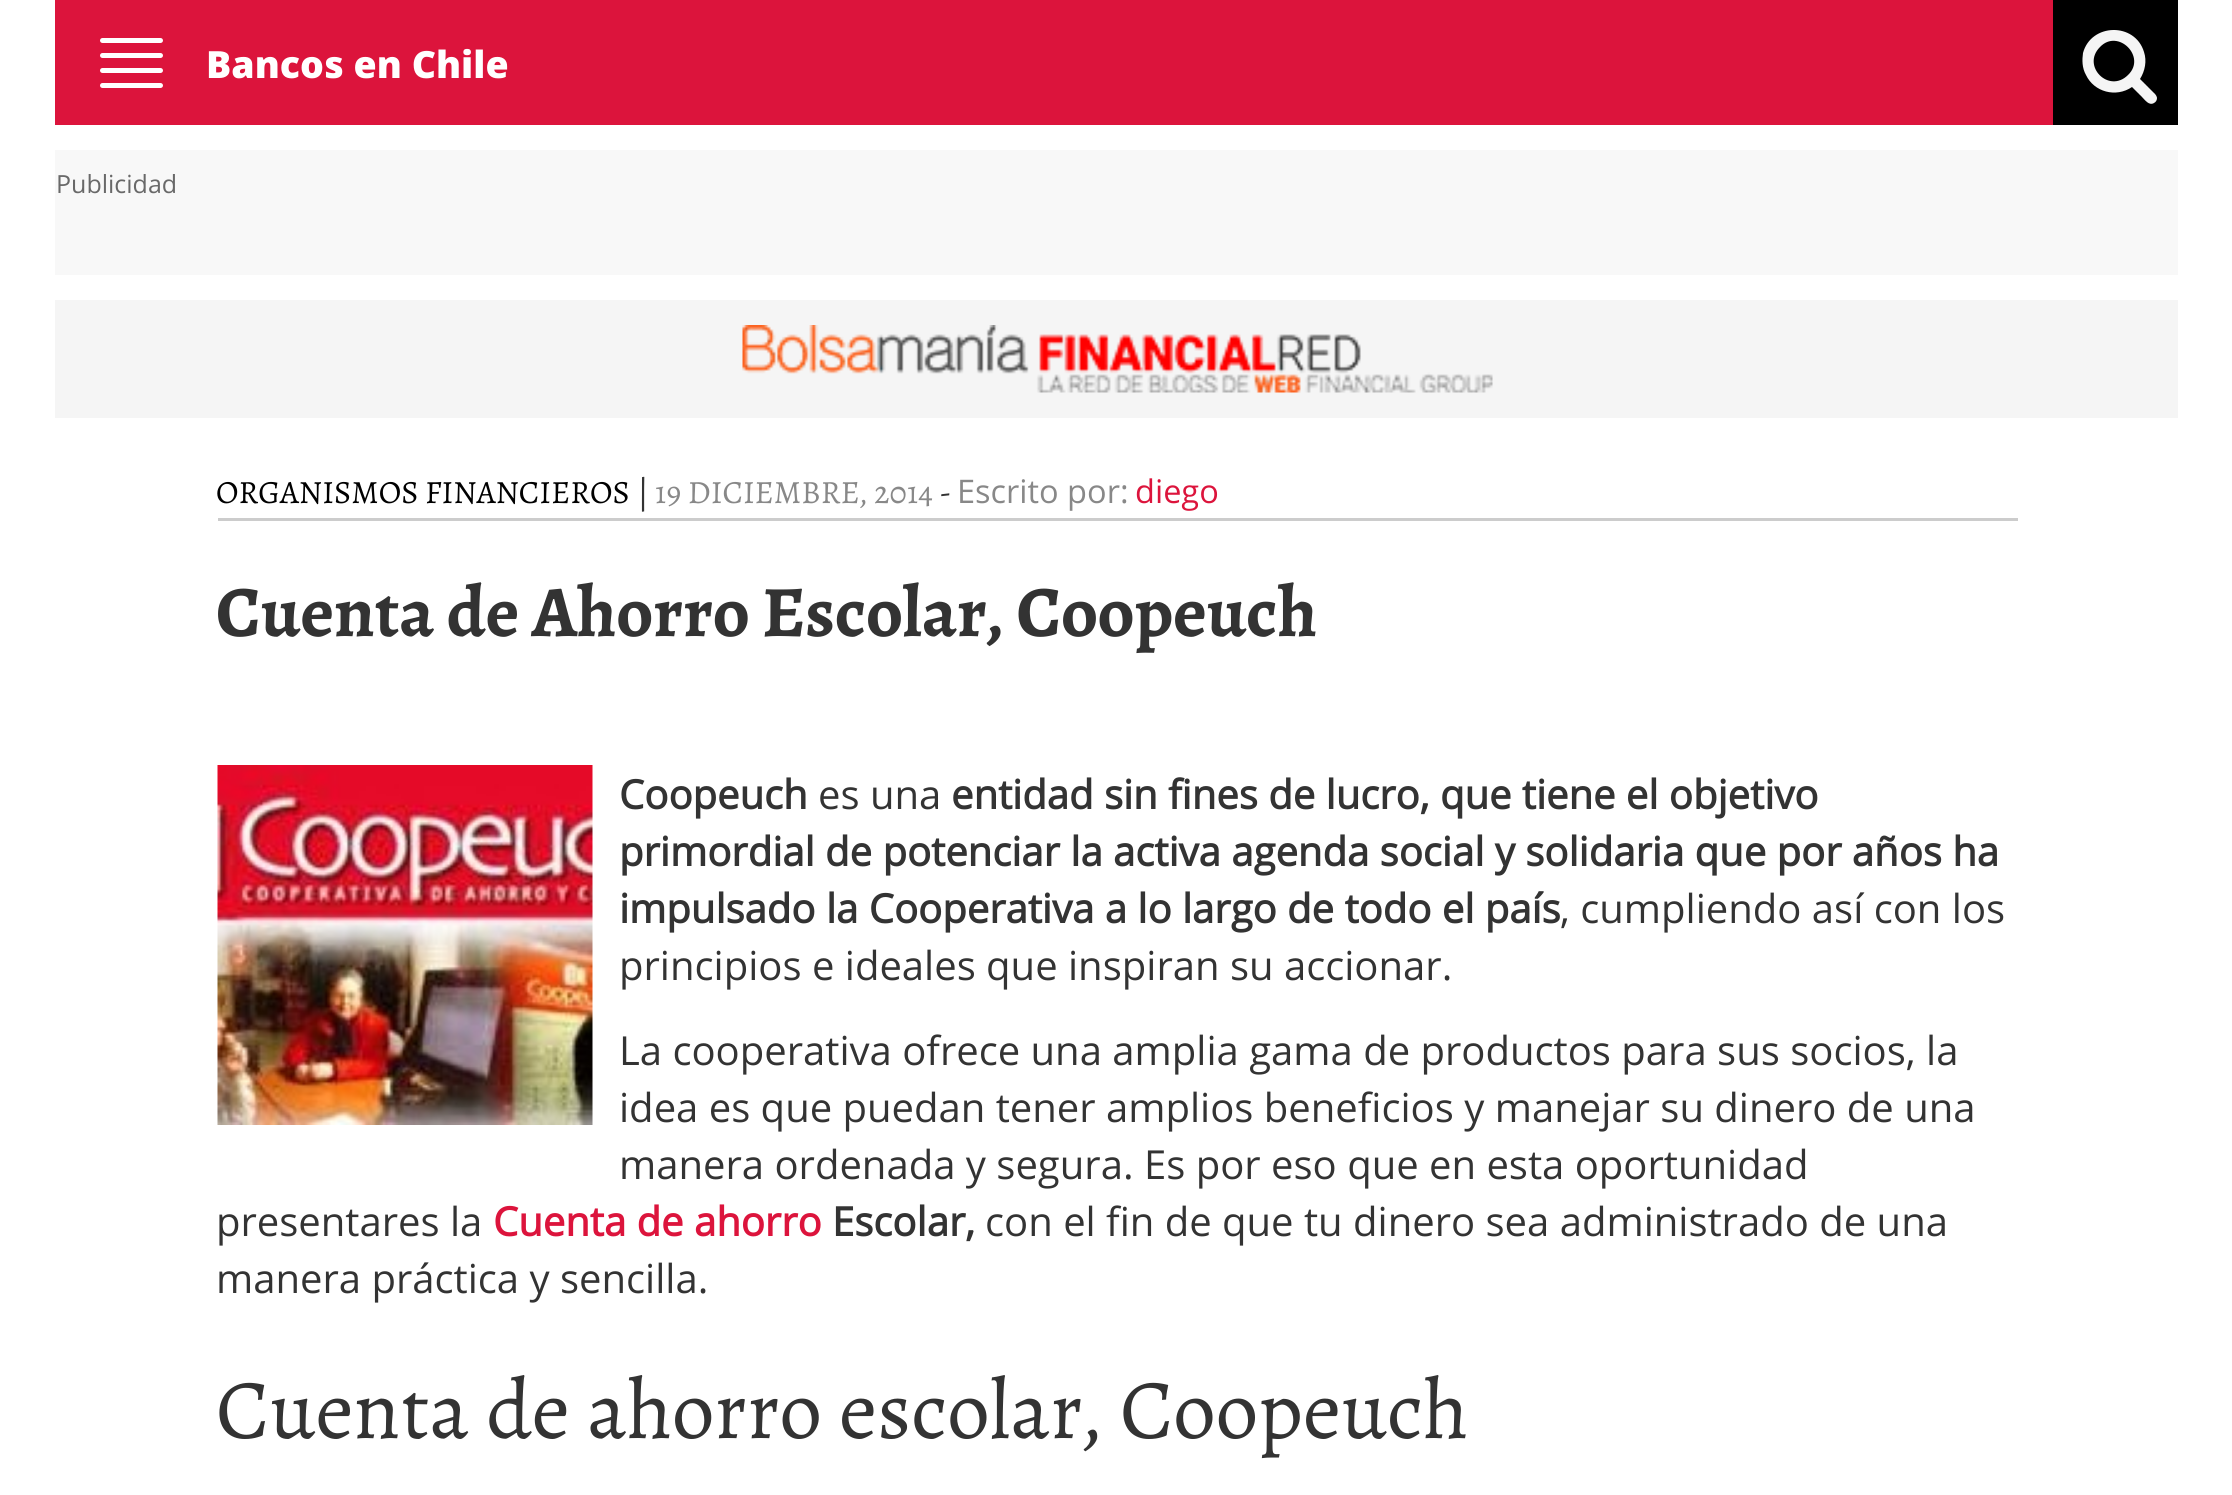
import math
import cairo

surface = cairo.ImageSurface(cairo.FORMAT_RGB24, 2232, 1495)
ctx = cairo.Context(surface)
options = cairo.FontOptions()
options.set_hint_metrics(cairo.HINT_METRICS_OFF)
options.set_hint_style(cairo.HINT_STYLE_NONE)
ctx.set_font_options(options)
ctx.set_miter_limit(4)


def set_color(code):
    ctx.set_source_rgb(*(v / 255 for v in bytes.fromhex(code[-6:])))


def draw_text(x, y, s, family, size, color, bold=False, italic=False):
    ctx.select_font_face(family, cairo.FONT_SLANT_ITALIC if italic else cairo.FONT_SLANT_NORMAL, cairo.FONT_WEIGHT_BOLD if bold else cairo.FONT_WEIGHT_NORMAL)
    ctx.set_font_size(size)
    set_color(color)
    ctx.move_to(x, y)
    ctx.show_text(s)


def fill_rect(x, y, w, h, color):
    set_color(color)
    ctx.rectangle(x, y, w, h)
    ctx.fill()


def rounded_rect(x, y, w, h, r):
    ctx.new_sub_path()
    for i, (u, v) in enumerate([(x + w - r, y + h - r), (x + r, y + h - r), (x + r, y + r), (x + w - r, y + r)]):
        ctx.arc(u, v, r, i * math.pi / 2, (i + 1) * math.pi / 2)
    ctx.close_path()


def draw_image(path, x, y, w, h):
    ctx.save()
    ctx.set_source_surface(cairo.ImageSurface.create_from_png(path), x, y)
    ctx.rectangle(x, y, w, h)
    ctx.fill()
    ctx.restore()


set_color("#ffffff")
ctx.paint()
fill_rect(55, 0, 1998, 125, "#dc143c")
set_color("#ffffff")
rounded_rect(100, 38, 63, 5, 2.5)
ctx.fill()
rounded_rect(100, 53, 63, 5, 2.5)
ctx.fill()
rounded_rect(100, 68, 63, 5, 2.5)
ctx.fill()
rounded_rect(100, 83, 63, 5, 2.5)
ctx.fill()
draw_text(206, 78, "Bancos en Chile", "Open Sans ExtraBold", 37.5, "#ffffff")
fill_rect(2053, 0, 125, 125, "#000000")
set_color("#f5f5f5")
ctx.new_path()
ctx.move_to(2128, 75)
ctx.curve_to(2147, 57, 2118, 28, 2100, 47)
ctx.curve_to(2081, 66, 2109, 94, 2128, 75)
ctx.close_path()
ctx.move_to(2157, 98)
ctx.curve_to(2157, 100, 2156, 102, 2154, 103)
ctx.curve_to(2149, 106, 2145, 100, 2142, 97)
ctx.line_to(2132, 87)
ctx.curve_to(2116, 98, 2094, 92, 2086, 75)
ctx.curve_to(2082, 68, 2082, 60, 2083, 53)
ctx.curve_to(2091, 23, 2135, 22, 2144, 52)
ctx.curve_to(2147, 61, 2145, 71, 2140, 79)
ctx.line_to(2155, 94)
ctx.curve_to(2156, 95, 2157, 97, 2157, 98)
ctx.close_path()
ctx.fill()
fill_rect(55, 150, 2123, 125, "#f8f8f8")
draw_text(56, 193, "Publicidad", "Open Sans", 25, "#696969")
fill_rect(55, 300, 2123, 118, "#f5f5f5")
draw_image("assets/img1.png", 742, 325, 751, 68)
fill_rect(218, 518, 1800, 3, "#cccccc")
draw_text(216, 503, "ORGANISMOS FINANCIEROS", "Alegreya", 32.5, "#000000")
draw_text(637, 503, "|", "Alegreya", 32.5, "#333333")
draw_text(655, 503, "19 DICIEMBRE, 2014", "Alegreya", 32.5, "#888888")
draw_text(940, 503, "-", "Alegreya", 32.5, "#333333")
draw_text(957, 503, "Escrito por:", "Open Sans", 32.5, "#888888")
draw_text(1135, 503, "diego", "Open Sans", 32.5, "#dc143c")
draw_text(216, 636, "Cuenta de Ahorro Escolar, Coopeuch", "Alegreya", 72.5, "#333333", bold=True)
draw_image("assets/img2.png", 217, 765, 376, 360)
draw_text(619, 809, "Coopeuch", "Open Sans", 40, "#333333", bold=True)
draw_text(818, 809, "es una", "Open Sans", 40, "#333333")
draw_text(951, 809, "entidad sin fines de lucro, que tiene el objetivo", "Open Sans", 40, "#333333", bold=True)
draw_text(619, 866, "primordial de potenciar la activa agenda social y solidaria que por años ha", "Open Sans", 40, "#333333", bold=True)
draw_text(619, 923, "impulsado la Cooperativa a lo largo de todo el país", "Open Sans", 40, "#333333", bold=True)
draw_text(1560, 923, ", cumpliendo así con los", "Open Sans", 40, "#333333")
draw_text(619, 980, "principios e ideales que inspiran su accionar.", "Open Sans", 40, "#333333")
draw_text(619, 1065, "La cooperativa ofrece una amplia gama de productos para sus socios, la", "Open Sans", 40, "#333333")
draw_text(619, 1122, "idea es que puedan tener amplios beneficios y manejar su dinero de una", "Open Sans", 40, "#333333")
draw_text(619, 1179, "manera ordenada y segura. Es por eso que en esta oportunidad", "Open Sans", 40, "#333333")
draw_text(216, 1236, "presentares la", "Open Sans", 40, "#333333")
draw_text(493, 1236, "Cuenta de ahorro", "Open Sans", 40, "#dc143c", bold=True)
draw_text(832, 1236, "Escolar,", "Open Sans", 40, "#333333", bold=True)
draw_text(985, 1236, "con el fin de que tu dinero sea administrado de una", "Open Sans", 40, "#333333")
draw_text(216, 1293, "manera práctica y sencilla.", "Open Sans", 40, "#333333")
draw_text(216, 1438, "Cuenta de ahorro escolar, Coopeuch", "Alegreya", 85, "#333333")
surface.write_to_png("output.png")
